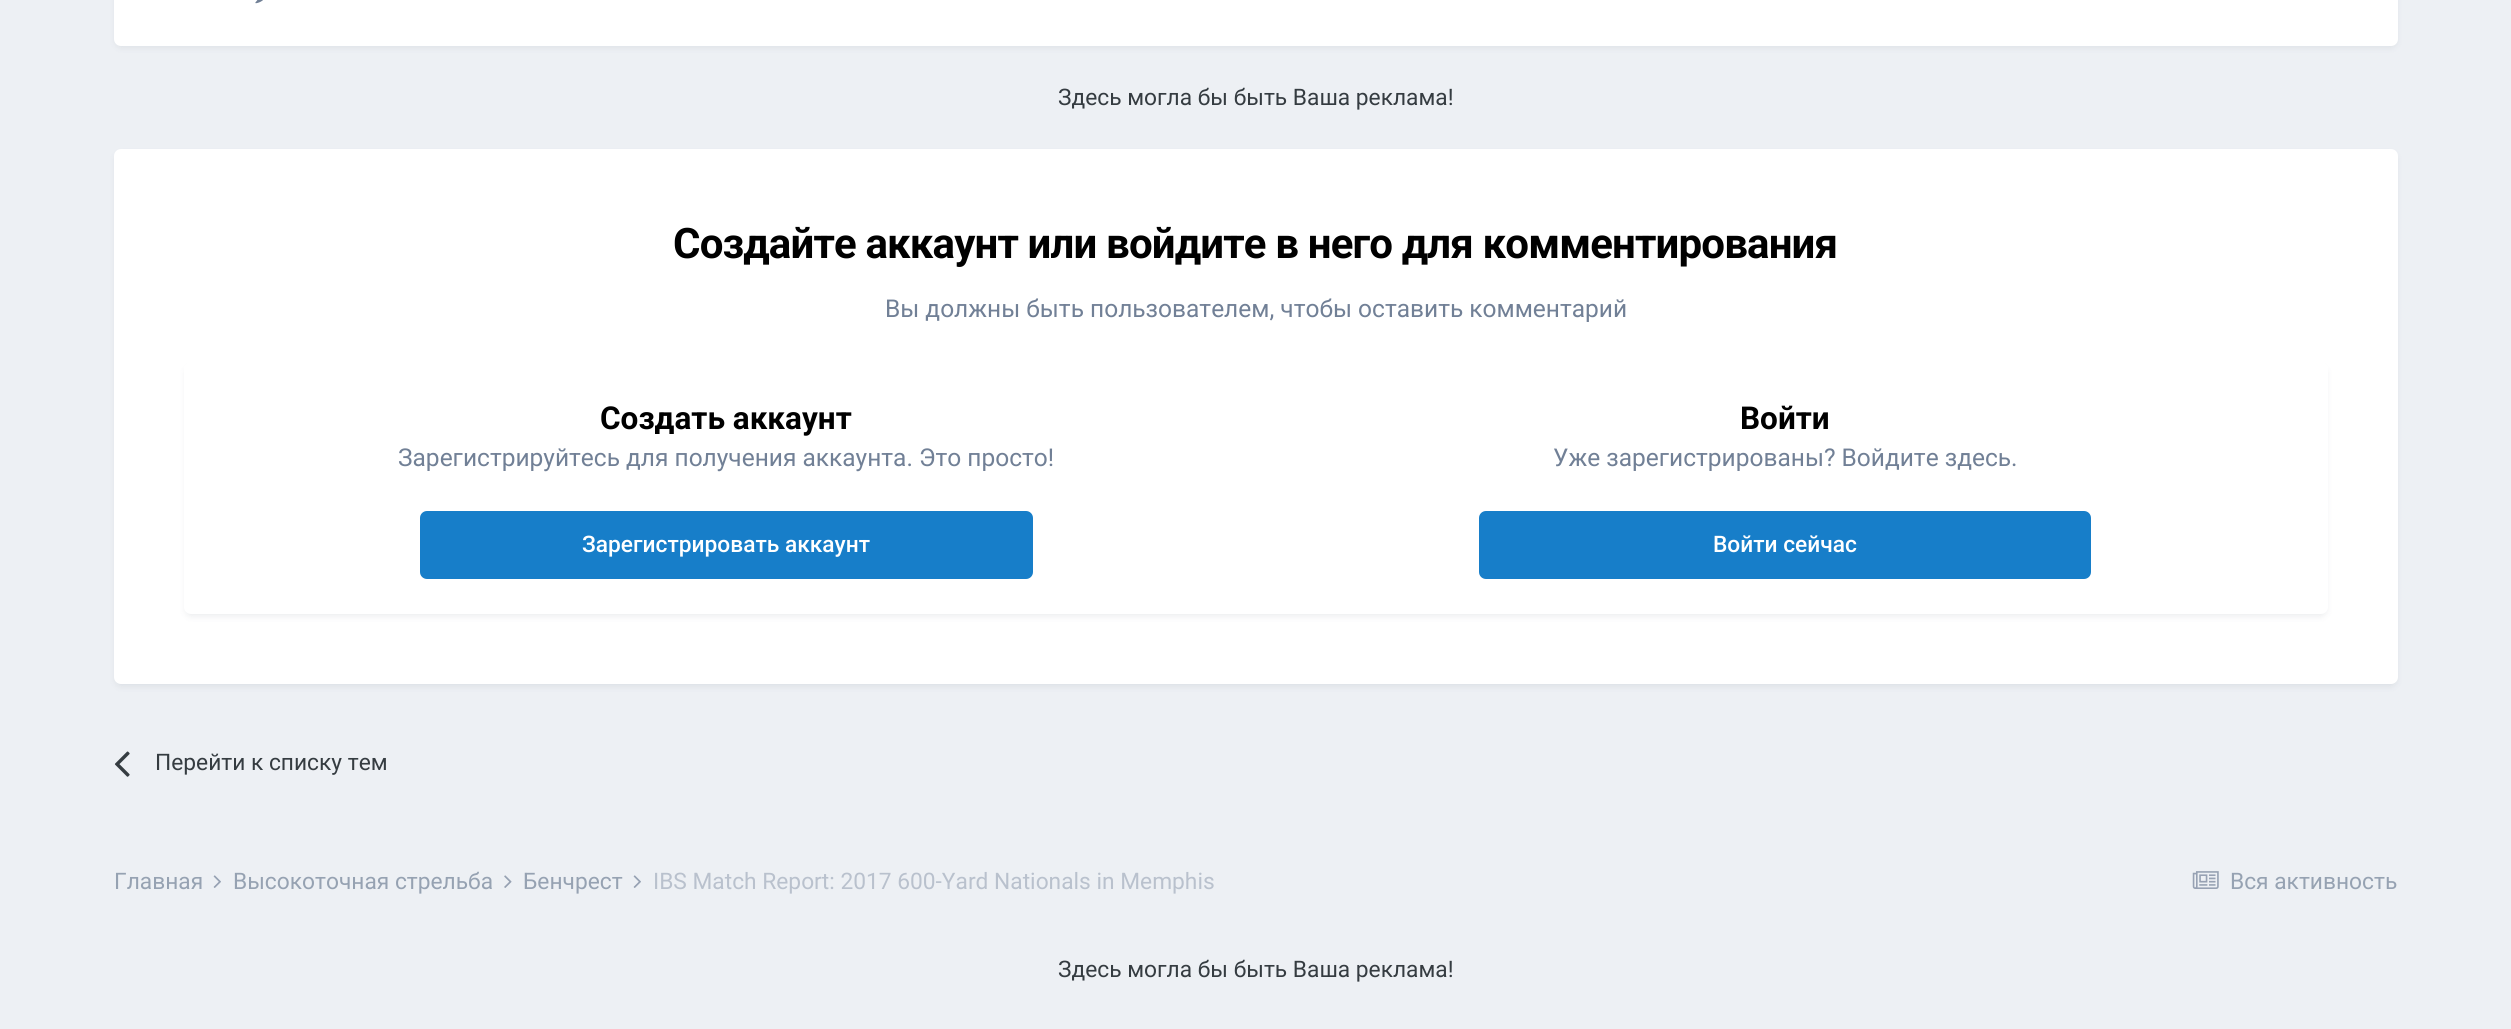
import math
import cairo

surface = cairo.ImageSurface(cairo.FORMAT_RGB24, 2511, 1029)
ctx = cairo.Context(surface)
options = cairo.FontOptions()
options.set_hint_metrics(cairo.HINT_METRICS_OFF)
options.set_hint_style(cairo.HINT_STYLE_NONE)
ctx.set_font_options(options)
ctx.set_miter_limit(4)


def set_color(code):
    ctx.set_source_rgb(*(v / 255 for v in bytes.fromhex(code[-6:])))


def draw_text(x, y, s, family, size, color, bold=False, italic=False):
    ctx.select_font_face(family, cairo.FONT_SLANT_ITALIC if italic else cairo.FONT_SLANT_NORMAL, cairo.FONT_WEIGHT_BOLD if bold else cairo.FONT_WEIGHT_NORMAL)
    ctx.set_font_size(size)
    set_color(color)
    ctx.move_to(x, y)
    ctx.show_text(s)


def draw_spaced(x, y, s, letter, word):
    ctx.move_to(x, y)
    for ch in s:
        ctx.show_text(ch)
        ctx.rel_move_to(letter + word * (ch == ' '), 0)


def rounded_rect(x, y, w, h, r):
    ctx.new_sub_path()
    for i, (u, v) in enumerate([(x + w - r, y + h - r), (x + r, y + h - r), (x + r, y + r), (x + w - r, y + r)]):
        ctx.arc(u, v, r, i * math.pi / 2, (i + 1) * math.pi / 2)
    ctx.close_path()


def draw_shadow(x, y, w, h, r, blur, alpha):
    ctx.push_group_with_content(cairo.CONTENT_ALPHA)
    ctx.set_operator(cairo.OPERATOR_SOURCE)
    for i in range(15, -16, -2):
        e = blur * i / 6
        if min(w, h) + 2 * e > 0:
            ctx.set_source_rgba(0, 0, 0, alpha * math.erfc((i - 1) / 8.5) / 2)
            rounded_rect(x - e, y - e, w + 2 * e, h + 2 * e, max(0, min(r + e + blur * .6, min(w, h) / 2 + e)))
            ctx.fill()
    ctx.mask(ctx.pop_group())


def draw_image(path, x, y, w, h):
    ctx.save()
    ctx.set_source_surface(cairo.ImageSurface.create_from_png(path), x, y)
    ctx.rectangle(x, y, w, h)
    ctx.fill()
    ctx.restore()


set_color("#edf0f4")
ctx.paint()
set_color("#2d3748")
draw_shadow(116, -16, 2280, 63, 5, 3.5, 0.1)
set_color("#ffffff")
rounded_rect(114, -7, 2284, 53, 7)
ctx.fill()
draw_image("assets/img1.png", 255, 0, 8, 4)
draw_text(1058, 105, "Здесь могла бы быть Ваша реклама!", "Roboto", 22.75, "#353c41")
set_color("#2d3748")
draw_shadow(116, 154, 2280, 532, 5, 3.5, 0.1)
set_color("#ffffff")
rounded_rect(114, 149, 2284, 535, 7)
ctx.fill()
ctx.select_font_face("Roboto", cairo.FONT_SLANT_NORMAL, cairo.FONT_WEIGHT_BOLD)
ctx.set_font_size(42)
set_color("#000000")
draw_spaced(673, 258, "Создайте аккаунт или войдите в него для комментирования", -0.85, 0)
draw_text(885, 317, "Вы должны быть пользователем, чтобы оставить комментарий", "Roboto", 24.5, "#718096")
set_color("#2d3748")
draw_shadow(186, 368, 2140, 248, 5, 3.5, 0.1)
set_color("#ffffff")
rounded_rect(184, 362, 2144, 252, 7)
ctx.fill()
draw_text(600, 429, "Создать аккаунт", "Roboto", 31.5, "#000000", bold=True)
draw_text(398, 466, "Зарегистрируйтесь для получения аккаунта. Это просто!", "Roboto", 24.5, "#718096")
set_color("#177ec9")
rounded_rect(420, 511, 613, 68, 7)
ctx.fill()
draw_text(582, 552, "Зарегистрировать аккаунт", "Roboto Medium", 22.75, "#ffffff")
draw_text(1740, 429, "Войти", "Roboto", 31.5, "#000000", bold=True)
draw_text(1553, 466, "Уже зарегистрированы? Войдите здесь.", "Roboto", 24.5, "#718096")
set_color("#177ec9")
rounded_rect(1479, 511, 612, 68, 7)
ctx.fill()
draw_text(1713, 552, "Войти сейчас", "Roboto Medium", 22.75, "#ffffff")
draw_image("assets/img2.png", 114, 751, 16, 26)
draw_text(155, 770, "Перейти к списку тем", "Roboto", 22.75, "#353c41")
draw_text(114, 889, "Главная", "Roboto", 22.75, "#96a2b2")
draw_image("assets/img3.png", 213, 875, 8, 13)
draw_text(233, 889, "Высокоточная стрельба", "Roboto", 22.75, "#96a2b2")
draw_image("assets/img4.png", 504, 875, 8, 13)
draw_text(523, 889, "Бенчрест", "Roboto", 22.75, "#96a2b2")
draw_image("assets/img3.png", 633, 875, 8, 13)
draw_text(653, 889, "IBS Match Report: 2017 600-Yard Nationals in Memphis", "Roboto", 22.75, "#b9c1cd")
draw_image("assets/img5.png", 2192, 871, 27, 18)
draw_text(2230, 889, "Вся активность", "Roboto", 22.75, "#96a2b2")
draw_text(1058, 977, "Здесь могла бы быть Ваша реклама!", "Roboto", 22.75, "#353c41")
surface.write_to_png("output.png")
